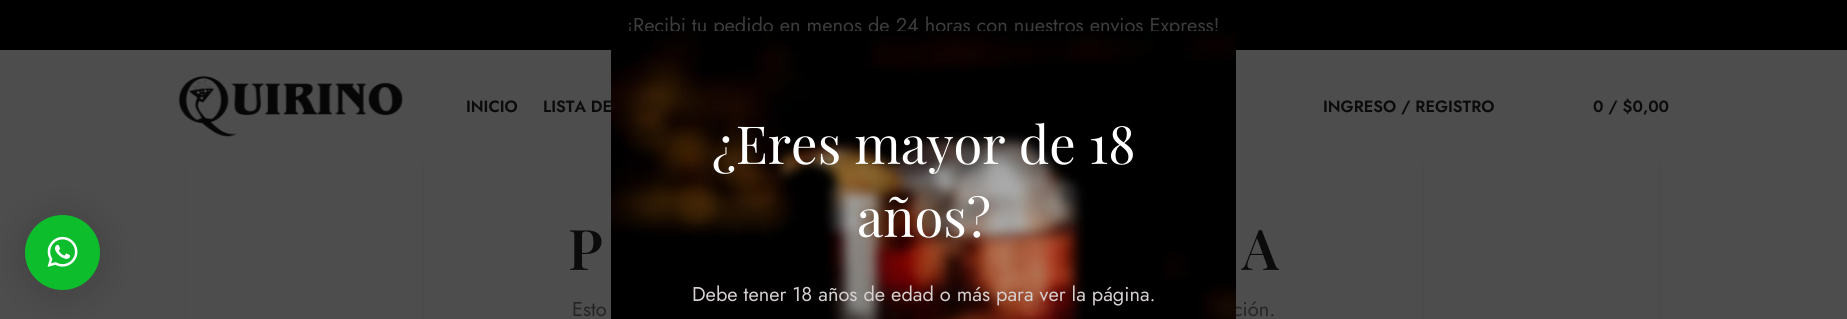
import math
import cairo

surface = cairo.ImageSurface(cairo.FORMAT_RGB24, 1847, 319)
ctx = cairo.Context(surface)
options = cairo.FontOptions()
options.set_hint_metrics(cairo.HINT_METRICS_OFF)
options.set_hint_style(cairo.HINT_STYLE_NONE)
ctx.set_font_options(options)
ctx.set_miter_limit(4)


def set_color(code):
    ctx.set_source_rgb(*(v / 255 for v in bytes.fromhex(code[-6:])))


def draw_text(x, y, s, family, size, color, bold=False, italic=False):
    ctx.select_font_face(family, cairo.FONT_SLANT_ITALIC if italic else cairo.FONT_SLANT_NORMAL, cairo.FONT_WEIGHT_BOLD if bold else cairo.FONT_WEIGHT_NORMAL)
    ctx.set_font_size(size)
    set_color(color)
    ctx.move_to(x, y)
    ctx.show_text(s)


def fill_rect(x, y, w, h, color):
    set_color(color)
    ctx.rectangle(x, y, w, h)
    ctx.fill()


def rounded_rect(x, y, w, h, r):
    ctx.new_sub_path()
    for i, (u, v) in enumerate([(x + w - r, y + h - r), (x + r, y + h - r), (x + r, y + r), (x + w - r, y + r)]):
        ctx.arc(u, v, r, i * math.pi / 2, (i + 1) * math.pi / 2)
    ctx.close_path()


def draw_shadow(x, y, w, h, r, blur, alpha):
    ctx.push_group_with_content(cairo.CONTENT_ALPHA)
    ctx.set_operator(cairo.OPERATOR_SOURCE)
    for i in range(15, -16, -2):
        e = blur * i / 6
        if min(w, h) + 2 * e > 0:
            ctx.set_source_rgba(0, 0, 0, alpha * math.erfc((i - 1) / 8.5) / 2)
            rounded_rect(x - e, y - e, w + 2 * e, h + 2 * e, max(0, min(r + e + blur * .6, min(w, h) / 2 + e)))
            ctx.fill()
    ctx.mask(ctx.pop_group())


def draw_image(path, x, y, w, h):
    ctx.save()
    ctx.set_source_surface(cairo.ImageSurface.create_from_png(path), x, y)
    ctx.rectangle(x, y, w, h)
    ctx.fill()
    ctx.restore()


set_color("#4d4d4d")
ctx.paint()
fill_rect(0, 0, 1847, 50, "#000000")
draw_text(627, 32, "¡Recibi tu pedido en menos de 24 horas con nuestros envios Express!", "Jost", 20, "#3d3d3d")
draw_image("assets/img1.png", 178, 76, 225, 61)
draw_text(466, 112, "INICIO", "Jost SemiBold", 16.25, "#0b0b0b")
draw_text(543, 112, "LISTA DE", "Jost SemiBold", 16.25, "#0b0b0b")
draw_text(1323, 112, "INGRESO / REGISTRO", "Jost SemiBold", 16.25, "#0b0b0b")
draw_text(1593, 112, "0 / $0,00", "Jost SemiBold", 16.25, "#0b0b0b")
draw_image("assets/img2.png", 185, 163, 1476, 156)
draw_text(568, 270, "P", "Playfair Display SemiBold", 56, "#0b0b0b")
draw_text(1242, 270, "A", "Playfair Display SemiBold", 56, "#0b0b0b")
draw_text(572, 316, "Esto", "Jost", 20, "#242424")
draw_text(1233, 316, "ción.", "Jost", 20, "#242424")
set_color("#000000")
draw_shadow(25, 218, 75, 75, 37.5, 20, 0.16)
set_color("#0dbd2c")
ctx.arc(62.5, 252.5, 37.5, 0, 2 * math.pi)
ctx.fill()
draw_image("assets/img3.png", 47, 236, 31, 31)
draw_image("assets/img4.png", 611, 31, 625, 288)
draw_text(712, 164, "¿Eres mayor de 18", "Playfair Display", 52.5, "#ffffff")
draw_text(857, 237, "años?", "Playfair Display", 52.5, "#ffffff")
draw_text(692, 301, "Debe tener 18 años de edad o más para ver la página.", "Jost", 20, "#d5d0cf")
surface.write_to_png("output.png")
